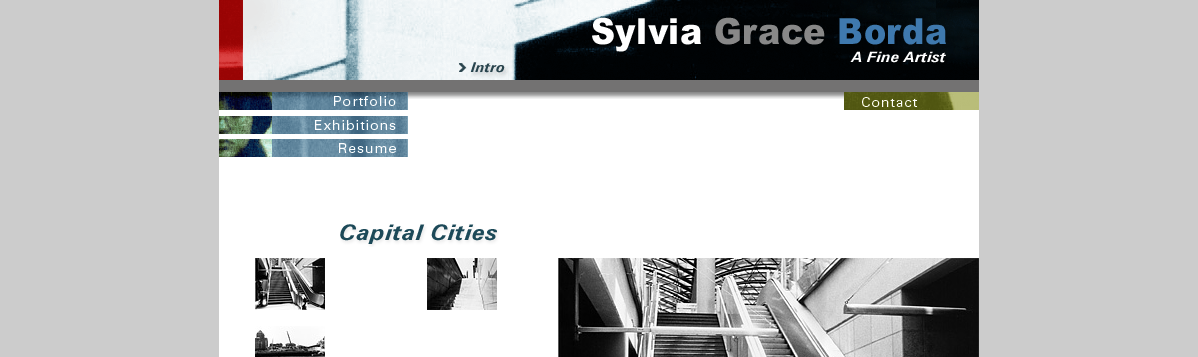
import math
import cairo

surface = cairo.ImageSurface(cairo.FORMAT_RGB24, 1198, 357)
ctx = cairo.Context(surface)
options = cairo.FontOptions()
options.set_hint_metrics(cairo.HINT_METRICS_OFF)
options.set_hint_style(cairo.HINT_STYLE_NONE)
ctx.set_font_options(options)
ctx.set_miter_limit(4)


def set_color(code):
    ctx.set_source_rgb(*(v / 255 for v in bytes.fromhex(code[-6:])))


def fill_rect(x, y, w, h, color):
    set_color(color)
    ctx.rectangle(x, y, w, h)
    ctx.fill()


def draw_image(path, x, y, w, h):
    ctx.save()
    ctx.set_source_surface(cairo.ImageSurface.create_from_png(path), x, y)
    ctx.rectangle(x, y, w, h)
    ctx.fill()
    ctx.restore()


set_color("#cccccc")
ctx.paint()
fill_rect(219, 99, 760, 258, "#ffffff")
draw_image("assets/img1.png", 219, 0, 760, 92)
draw_image("assets/img2.png", 219, 92, 189, 18)
draw_image("assets/img3.png", 408, 92, 436, 7)
draw_image("assets/img4.png", 844, 92, 135, 18)
draw_image("assets/img5.png", 219, 116, 189, 18)
draw_image("assets/img6.png", 219, 139, 189, 18)
draw_image("assets/img7.png", 340, 224, 159, 23)
draw_image("assets/img8.png", 255, 258, 70, 52)
draw_image("assets/img9.png", 427, 258, 70, 52)
draw_image("assets/img10.png", 255, 326, 70, 31)
draw_image("assets/img11.png", 558, 258, 421, 99)
surface.write_to_png("output.png")
